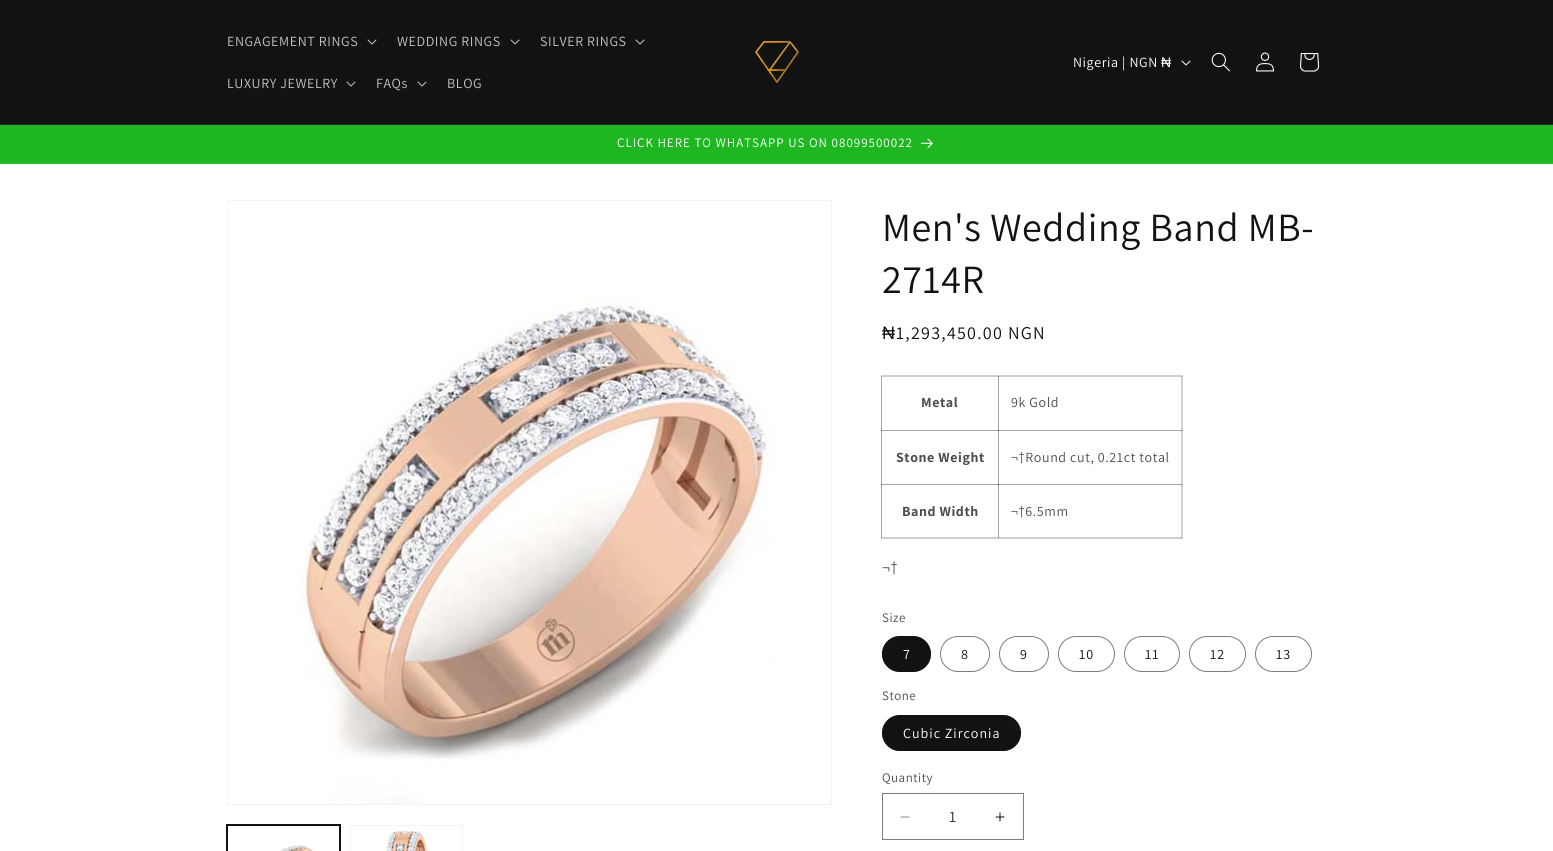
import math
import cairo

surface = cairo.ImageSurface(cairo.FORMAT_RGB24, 1553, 851)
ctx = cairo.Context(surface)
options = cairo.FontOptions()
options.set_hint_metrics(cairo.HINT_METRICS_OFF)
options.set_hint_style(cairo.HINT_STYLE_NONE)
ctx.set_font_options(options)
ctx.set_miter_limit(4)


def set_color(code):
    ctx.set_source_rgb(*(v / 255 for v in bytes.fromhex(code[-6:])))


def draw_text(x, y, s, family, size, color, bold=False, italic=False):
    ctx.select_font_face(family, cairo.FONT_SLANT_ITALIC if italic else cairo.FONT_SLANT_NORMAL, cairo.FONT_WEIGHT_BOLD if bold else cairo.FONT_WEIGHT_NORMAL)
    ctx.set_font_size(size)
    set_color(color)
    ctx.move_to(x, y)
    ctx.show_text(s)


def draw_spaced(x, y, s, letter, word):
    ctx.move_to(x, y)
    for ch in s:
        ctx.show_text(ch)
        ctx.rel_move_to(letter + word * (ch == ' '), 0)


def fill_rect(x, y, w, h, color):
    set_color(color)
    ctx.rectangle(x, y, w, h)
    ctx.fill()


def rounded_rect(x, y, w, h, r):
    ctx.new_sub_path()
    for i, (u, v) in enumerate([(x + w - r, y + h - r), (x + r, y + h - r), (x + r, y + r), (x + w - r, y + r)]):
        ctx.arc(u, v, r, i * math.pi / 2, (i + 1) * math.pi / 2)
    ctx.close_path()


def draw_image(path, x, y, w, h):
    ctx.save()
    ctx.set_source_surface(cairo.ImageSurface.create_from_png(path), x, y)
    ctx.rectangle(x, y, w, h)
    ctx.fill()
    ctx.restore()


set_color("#ffffff")
ctx.paint()
fill_rect(1181, 376, 1, 109, "#d0d0d0")
fill_rect(998, 484, 1, 54, "#d0d0d0")
fill_rect(998, 537, 184, 1, "#d0d0d0")
fill_rect(998, 537, 1, 1, "#aaaaaa")
fill_rect(1181, 484, 1, 54, "#d0d0d0")
fill_rect(1181, 537, 1, 1, "#aaaaaa")
fill_rect(0, 0, 1553, 124, "#121212")
fill_rect(0, 124, 1553, 1, "#252525")
ctx.select_font_face("Assistant")
ctx.set_font_size(14)
set_color("#c4c4c4")
draw_spaced(227, 46, "ENGAGEMENT RINGS", 0.6, 0)
draw_image("assets/img1.png", 367, 39, 10, 6)
draw_spaced(397, 46, "WEDDING RINGS", 0.6, 0)
draw_image("assets/img1.png", 510, 39, 10, 6)
draw_spaced(540, 46, "SILVER RINGS", 0.6, 0)
draw_image("assets/img1.png", 635, 39, 10, 6)
draw_spaced(227, 88, "LUXURY JEWELRY", 0.6, 0)
draw_image("assets/img1.png", 346, 81, 10, 6)
draw_spaced(376, 88, "FAQs", 0.6, 0)
draw_image("assets/img1.png", 417, 81, 10, 6)
draw_spaced(447, 88, "BLOG", 0.6, 0)
draw_image("assets/img2.png", 755, 40, 44, 43)
set_color("#ffffff")
draw_spaced(1073, 67, "Nigeria | NGN", 0.6, 0)
ctx.select_font_face("Liberation Sans")
draw_spaced(1161, 67, "₦", 0.6, 0)
draw_image("assets/img3.png", 1181, 60, 10, 6)
draw_image("assets/img4.png", 1211, 52, 19, 20)
draw_image("assets/img5.png", 1256, 52, 18, 20)
draw_image("assets/img6.png", 1300, 53, 20, 19)
fill_rect(0, 125, 1553, 38, "#1fb721")
fill_rect(0, 163, 1553, 1, "#31bd33")
ctx.select_font_face("Assistant")
ctx.set_font_size(13)
set_color("#ffffff")
draw_spaced(617, 147, "CLICK HERE TO WHATSAPP US ON 08099500022", 1, 0)
draw_image("assets/img7.png", 921, 138, 12, 10)
ctx.rectangle(227.5, 200.5, 604, 604)
set_color("#f3f3f3")
ctx.set_line_width(1)
ctx.stroke()
draw_image("assets/img8.png", 296, 298, 478, 506)
ctx.rectangle(226.5, 824.5, 114, 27)
set_color("#121212")
ctx.stroke()
ctx.rectangle(227.5, 825.5, 112, 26)
ctx.stroke()
draw_image("assets/img9.png", 280, 845, 33, 6)
ctx.rectangle(350.5, 825.5, 112, 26)
set_color("#f3f3f3")
ctx.stroke()
draw_image("assets/img10.png", 386, 830, 42, 21)
ctx.set_font_size(40)
set_color("#121212")
draw_spaced(882, 241, "Men's Wedding Band MB-", 0.6, 0)
draw_spaced(882, 293, "2714R", 0.6, 0)
ctx.select_font_face("Liberation Sans")
ctx.set_font_size(18)
draw_spaced(882, 339, "₦", 1.25, 0)
ctx.select_font_face("Assistant")
draw_spaced(896, 339, "1,293,450.00 NGN", 1.25, 0)
ctx.rectangle(881.5, 375.5, 301, 163)
set_color("#d0d0d0")
ctx.stroke()
fill_rect(998, 376, 184, 1, "#d0d0d0")
fill_rect(998, 430, 184, 1, "#d0d0d0")
fill_rect(998, 484, 184, 1, "#d0d0d0")
fill_rect(998, 484, 1, 1, "#aaaaaa")
ctx.set_source_rgba(0.071, 0.071, 0.071, 0.2)
ctx.rectangle(881, 484, 118, 1)
ctx.fill()
ctx.rectangle(998, 484, 1, 54)
ctx.fill()
fill_rect(1181, 484, 1, 1, "#8c8c8c")
ctx.set_source_rgba(0.071, 0.071, 0.071, 0.2)
ctx.rectangle(998, 484, 184, 1)
ctx.fill()
ctx.rectangle(998, 430, 1, 55)
ctx.fill()
ctx.rectangle(881, 430, 118, 1)
ctx.fill()
ctx.rectangle(998, 430, 1, 55)
ctx.fill()
fill_rect(1181, 430, 1, 1, "#8c8c8c")
ctx.set_source_rgba(0.071, 0.071, 0.071, 0.2)
ctx.rectangle(998, 430, 184, 1)
ctx.fill()
ctx.rectangle(998, 376, 1, 55)
ctx.fill()
ctx.rectangle(881, 376, 118, 1)
ctx.fill()
ctx.rectangle(998, 376, 1, 55)
ctx.fill()
ctx.rectangle(881, 537, 118, 1)
ctx.fill()
ctx.rectangle(881, 484, 1, 54)
ctx.fill()
ctx.rectangle(881, 484, 118, 1)
ctx.fill()
ctx.rectangle(881, 430, 1, 55)
ctx.fill()
ctx.rectangle(881, 430, 118, 1)
ctx.fill()
ctx.rectangle(881, 376, 1, 55)
ctx.fill()
ctx.select_font_face("Assistant", cairo.FONT_SLANT_NORMAL, cairo.FONT_WEIGHT_BOLD)
ctx.set_font_size(14)
set_color("#4d4d4d")
draw_spaced(921, 407, "Metal", 0.6, 0)
fill_rect(1181, 376, 1, 1, "#aaaaaa")
ctx.select_font_face("Assistant")
set_color("#4d4d4d")
draw_spaced(1011, 407, "9k Gold", 0.6, 0)
ctx.select_font_face("Assistant", cairo.FONT_SLANT_NORMAL, cairo.FONT_WEIGHT_BOLD)
draw_spaced(896, 462, "Stone Weight", 0.6, 0)
ctx.select_font_face("Assistant")
draw_spaced(1011, 462, "¬†Round cut, 0.21ct total", 0.6, 0)
ctx.select_font_face("Assistant", cairo.FONT_SLANT_NORMAL, cairo.FONT_WEIGHT_BOLD)
draw_spaced(902, 516, "Band Width", 0.6, 0)
ctx.select_font_face("Assistant")
draw_spaced(1011, 516, "¬†6.5mm", 0.6, 0)
ctx.set_font_size(16)
draw_spaced(882, 573, "¬†", 0.6, 0)
ctx.set_font_size(13)
draw_spaced(882, 622, "Size", 0.5, 0)
set_color("#121212")
rounded_rect(882, 636, 49, 36, 18)
ctx.fill()
rounded_rect(882.5, 636.5, 48, 35, 17.5)
ctx.set_source_rgba(0.071, 0.071, 0.071, 0.55)
ctx.stroke()
ctx.set_font_size(14)
set_color("#ffffff")
draw_spaced(903, 659, "7", 1, 0)
rounded_rect(940.5, 636.5, 49, 35, 17.5)
set_color("#7d7d7d")
ctx.stroke()
set_color("#121212")
draw_spaced(961, 659, "8", 1, 0)
rounded_rect(999.5, 636.5, 49, 35, 17.5)
set_color("#7d7d7d")
ctx.stroke()
set_color("#121212")
draw_spaced(1020, 659, "9", 1, 0)
rounded_rect(1058.5, 636.5, 56, 35, 17.5)
set_color("#7d7d7d")
ctx.stroke()
set_color("#121212")
draw_spaced(1079, 659, "10", 1, 0)
rounded_rect(1124.5, 636.5, 55, 35, 17.5)
set_color("#7d7d7d")
ctx.stroke()
set_color("#121212")
draw_spaced(1145, 659, "11", 1, 0)
rounded_rect(1189.5, 636.5, 56, 35, 17.5)
set_color("#7d7d7d")
ctx.stroke()
set_color("#121212")
draw_spaced(1210, 659, "12", 1, 0)
rounded_rect(1255.5, 636.5, 56, 35, 17.5)
set_color("#7d7d7d")
ctx.stroke()
set_color("#121212")
draw_spaced(1276, 659, "13", 1, 0)
ctx.set_font_size(13)
set_color("#4d4d4d")
draw_spaced(882, 700, "Stone", 0.5, 0)
set_color("#121212")
rounded_rect(882, 715, 139, 36, 18)
ctx.fill()
rounded_rect(882.5, 715.5, 138, 35, 17.5)
ctx.set_source_rgba(0.071, 0.071, 0.071, 0.55)
ctx.stroke()
ctx.set_font_size(14)
set_color("#ffffff")
draw_spaced(903, 738, "Cubic Zirconia", 1, 0)
ctx.set_font_size(13)
set_color("#4d4d4d")
draw_spaced(882, 782, "Quantity", 0.5, 0)
draw_image("assets/img11.png", 900, 816, 10, 2)
draw_image("assets/img12.png", 995, 812, 10, 10)
ctx.rectangle(882.5, 793.5, 141, 46)
set_color("#7d7d7d")
ctx.stroke()
draw_text(949, 822, "1", "Assistant", 16, "#363636")
surface.write_to_png("output.png")
